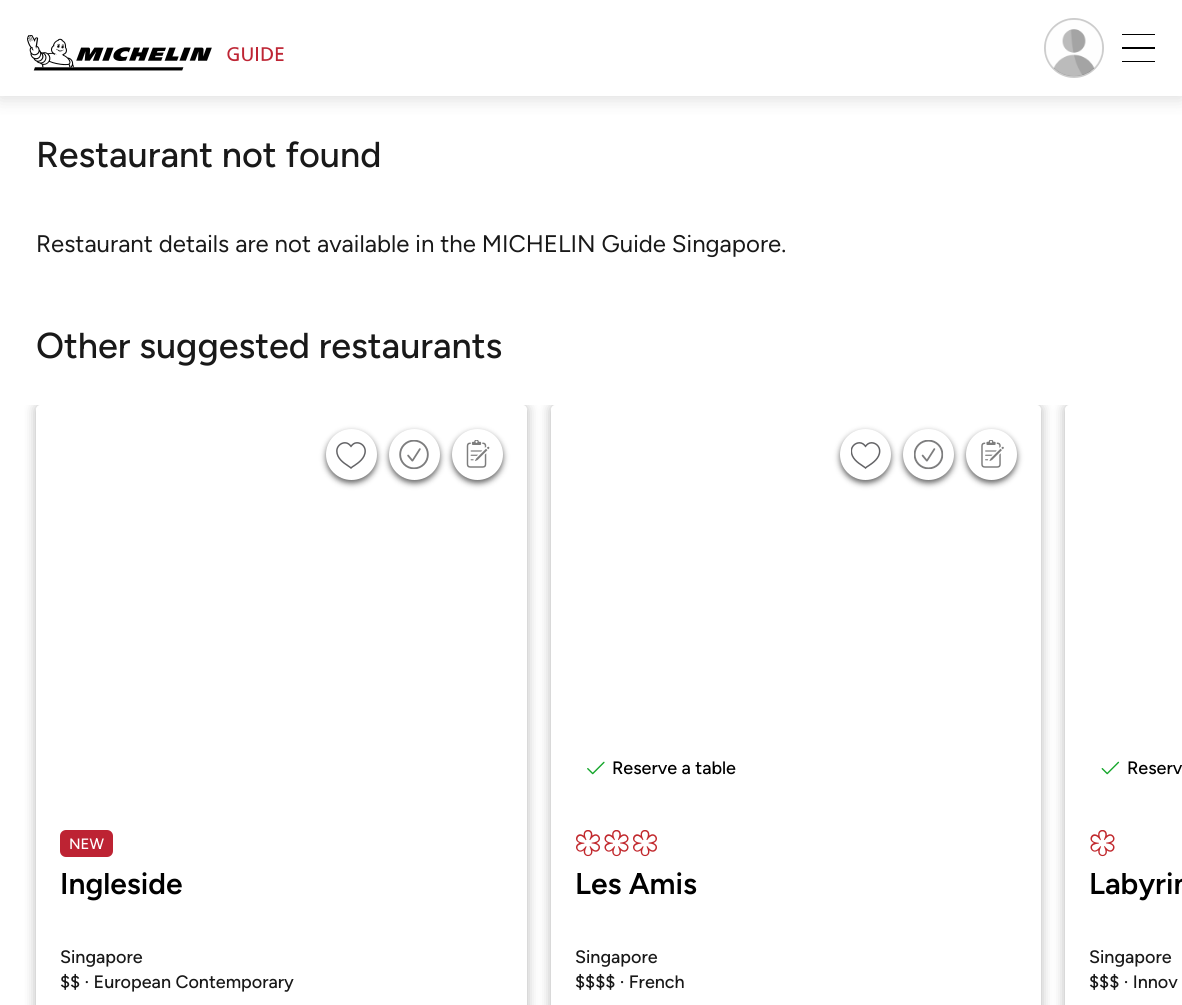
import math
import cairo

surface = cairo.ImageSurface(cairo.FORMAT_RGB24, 1182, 1005)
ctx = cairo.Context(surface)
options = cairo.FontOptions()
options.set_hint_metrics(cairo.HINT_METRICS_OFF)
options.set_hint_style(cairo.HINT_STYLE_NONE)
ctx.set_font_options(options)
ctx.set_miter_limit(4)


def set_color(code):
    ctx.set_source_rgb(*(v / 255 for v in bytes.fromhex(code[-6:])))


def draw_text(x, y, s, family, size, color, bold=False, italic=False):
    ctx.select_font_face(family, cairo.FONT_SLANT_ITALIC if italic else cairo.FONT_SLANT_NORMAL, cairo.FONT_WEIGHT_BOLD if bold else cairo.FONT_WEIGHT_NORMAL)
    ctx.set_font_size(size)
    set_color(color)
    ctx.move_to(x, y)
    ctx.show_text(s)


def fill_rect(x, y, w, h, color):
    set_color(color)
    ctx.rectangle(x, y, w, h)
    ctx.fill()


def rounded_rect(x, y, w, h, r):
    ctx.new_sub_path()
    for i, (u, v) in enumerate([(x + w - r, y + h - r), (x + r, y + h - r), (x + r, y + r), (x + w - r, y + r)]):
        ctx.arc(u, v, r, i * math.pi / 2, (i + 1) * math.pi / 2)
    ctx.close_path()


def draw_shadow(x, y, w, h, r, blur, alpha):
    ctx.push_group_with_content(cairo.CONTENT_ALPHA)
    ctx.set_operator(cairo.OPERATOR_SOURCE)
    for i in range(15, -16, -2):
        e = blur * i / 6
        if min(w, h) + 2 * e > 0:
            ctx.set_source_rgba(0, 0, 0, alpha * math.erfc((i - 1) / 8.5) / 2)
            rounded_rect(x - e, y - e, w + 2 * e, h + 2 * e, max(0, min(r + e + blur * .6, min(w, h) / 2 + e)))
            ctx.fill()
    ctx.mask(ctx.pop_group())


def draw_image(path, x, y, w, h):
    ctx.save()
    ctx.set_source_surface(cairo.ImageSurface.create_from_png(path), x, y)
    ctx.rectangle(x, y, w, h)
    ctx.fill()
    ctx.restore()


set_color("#ffffff")
ctx.paint()
ctx.save()
ctx.rectangle(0, 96, 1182, 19)
ctx.clip()
set_color("#cccccc")
draw_shadow(0, 2, 1182, 96, 0, 9, 0.72)
ctx.restore()
draw_image("assets/img1.png", 27, 35, 257, 36)
ctx.arc(1074, 48, 29, 0, 2 * math.pi)
set_color("#cccccc")
ctx.stroke()
draw_image("assets/img2.png", 1045, 19, 58, 58)
fill_rect(1122, 34, 33, 1, "#000000")
fill_rect(1122, 47, 33, 2, "#000000")
fill_rect(1122, 61, 33, 1, "#000000")
draw_text(36, 167, "Restaurant not found", "Figtree Medium", 36, "#191919")
draw_text(36, 252, "Restaurant details are not available in the MICHELIN Guide Singapore.", "Figtree", 24, "#191919")
draw_text(36, 358, "Other suggested restaurants", "Figtree Medium", 36, "#191919")
ctx.save()
ctx.rectangle(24, 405, 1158, 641)
ctx.clip()
ctx.set_fill_rule(cairo.FILL_RULE_EVEN_ODD)
ctx.new_path()
ctx.move_to(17, 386)
ctx.line_to(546, 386)
ctx.line_to(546, 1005)
ctx.line_to(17, 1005)
ctx.close_path()
ctx.move_to(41, 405)
ctx.line_to(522, 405)
ctx.curve_to(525, 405, 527, 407, 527, 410)
ctx.line_to(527, 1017)
ctx.curve_to(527, 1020, 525, 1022, 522, 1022)
ctx.line_to(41, 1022)
ctx.curve_to(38, 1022, 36, 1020, 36, 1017)
ctx.line_to(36, 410)
ctx.curve_to(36, 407, 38, 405, 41, 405)
ctx.close_path()
ctx.clip()
set_color("#000000")
draw_shadow(36, 405, 491, 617, 5, 6, 0.3)
ctx.restore()
set_color("#666666")
draw_shadow(326, 432, 51, 51, 25.5, 3, 1)
set_color("#ffffff")
ctx.arc(351.5, 454.5, 25.5, 0, 2 * math.pi)
ctx.fill()
draw_image("assets/img3.png", 336, 442, 30, 27)
set_color("#666666")
draw_shadow(389, 432, 51, 51, 25.5, 3, 1)
set_color("#ffffff")
ctx.arc(414.5, 454.5, 25.5, 0, 2 * math.pi)
ctx.fill()
draw_image("assets/img4.png", 399, 440, 30, 30)
set_color("#666666")
draw_shadow(452, 432, 51, 51, 25.5, 3, 1)
set_color("#ffffff")
ctx.arc(477.5, 454.5, 25.5, 0, 2 * math.pi)
ctx.fill()
draw_image("assets/img5.png", 466, 440, 24, 28)
set_color("#bd2333")
rounded_rect(60, 830, 53, 27, 6)
ctx.fill()
draw_text(69, 849, "NEW", "Figtree Medium", 15, "#ffffff")
draw_text(60, 894, "Ingleside", "Figtree SemiBold", 30, "#000000")
draw_text(60, 963, "Singapore", "Figtree Medium", 18, "#191919")
draw_text(60, 988, "$$ · European Contemporary", "Figtree Medium", 18, "#191919")
ctx.save()
ctx.rectangle(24, 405, 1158, 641)
ctx.clip()
ctx.set_fill_rule(cairo.FILL_RULE_EVEN_ODD)
ctx.new_path()
ctx.move_to(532, 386)
ctx.line_to(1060, 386)
ctx.line_to(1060, 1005)
ctx.line_to(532, 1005)
ctx.close_path()
ctx.move_to(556, 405)
ctx.line_to(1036, 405)
ctx.curve_to(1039, 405, 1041, 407, 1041, 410)
ctx.line_to(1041, 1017)
ctx.curve_to(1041, 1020, 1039, 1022, 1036, 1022)
ctx.line_to(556, 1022)
ctx.curve_to(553, 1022, 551, 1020, 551, 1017)
ctx.line_to(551, 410)
ctx.curve_to(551, 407, 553, 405, 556, 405)
ctx.close_path()
ctx.clip()
set_color("#000000")
draw_shadow(551, 405, 490, 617, 5, 6, 0.3)
ctx.restore()
set_color("#666666")
draw_shadow(840, 432, 51, 51, 25.5, 3, 1)
set_color("#ffffff")
ctx.arc(865.5, 454.5, 25.5, 0, 2 * math.pi)
ctx.fill()
draw_image("assets/img6.png", 851, 442, 30, 27)
set_color("#666666")
draw_shadow(903, 432, 51, 51, 25.5, 3, 1)
set_color("#ffffff")
ctx.arc(928.5, 454.5, 25.5, 0, 2 * math.pi)
ctx.fill()
draw_image("assets/img7.png", 914, 440, 30, 30)
set_color("#666666")
draw_shadow(966, 432, 51, 51, 25.5, 3, 1)
set_color("#ffffff")
ctx.arc(991.5, 454.5, 25.5, 0, 2 * math.pi)
ctx.fill()
draw_image("assets/img8.png", 981, 440, 23, 28)
draw_image("assets/img9.png", 587, 761, 18, 14)
draw_text(612, 774, "Reserve a table", "Figtree Medium", 18, "#000000")
draw_image("assets/img10.png", 576, 830, 24, 27)
draw_image("assets/img11.png", 604, 830, 25, 27)
draw_image("assets/img10.png", 633, 830, 24, 27)
draw_text(575, 894, "Les Amis", "Figtree SemiBold", 30, "#000000")
draw_text(575, 963, "Singapore", "Figtree Medium", 18, "#191919")
draw_text(575, 988, "$$$$ · French", "Figtree Medium", 18, "#191919")
ctx.save()
ctx.rectangle(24, 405, 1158, 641)
ctx.clip()
ctx.set_fill_rule(cairo.FILL_RULE_EVEN_ODD)
ctx.new_path()
ctx.move_to(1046, 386)
ctx.line_to(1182, 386)
ctx.line_to(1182, 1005)
ctx.line_to(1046, 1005)
ctx.close_path()
ctx.move_to(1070, 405)
ctx.line_to(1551, 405)
ctx.curve_to(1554, 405, 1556, 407, 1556, 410)
ctx.line_to(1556, 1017)
ctx.curve_to(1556, 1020, 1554, 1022, 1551, 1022)
ctx.line_to(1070, 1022)
ctx.curve_to(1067, 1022, 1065, 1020, 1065, 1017)
ctx.line_to(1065, 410)
ctx.curve_to(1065, 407, 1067, 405, 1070, 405)
ctx.close_path()
ctx.clip()
set_color("#000000")
draw_shadow(1065, 405, 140, 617, 5, 6, 0.3)
ctx.restore()
draw_image("assets/img12.png", 1101, 761, 19, 14)
draw_text(1127, 774, "Reserv", "Figtree Medium", 18, "#000000")
draw_image("assets/img11.png", 1090, 830, 25, 27)
draw_text(1089, 894, "Labyrin", "Figtree SemiBold", 30, "#000000")
draw_text(1089, 963, "Singapore", "Figtree Medium", 18, "#191919")
draw_text(1089, 988, "$$$ · Innov", "Figtree Medium", 18, "#191919")
surface.write_to_png("output.png")
